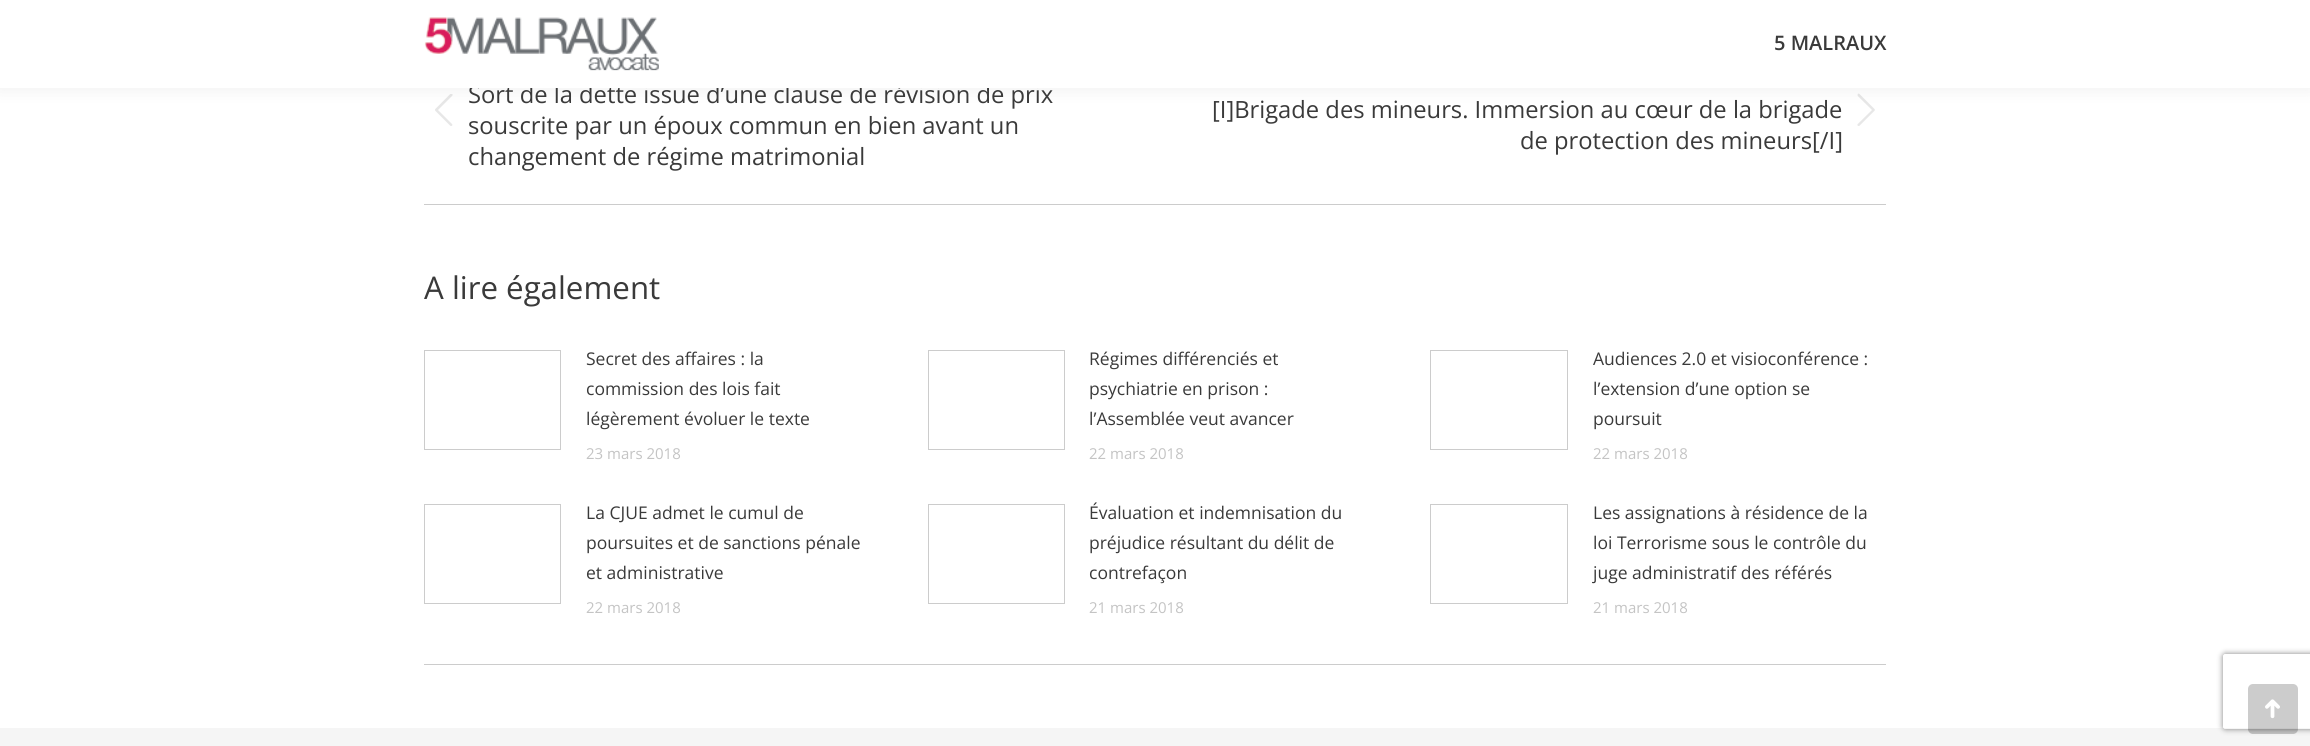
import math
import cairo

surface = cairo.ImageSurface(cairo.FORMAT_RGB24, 2310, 746)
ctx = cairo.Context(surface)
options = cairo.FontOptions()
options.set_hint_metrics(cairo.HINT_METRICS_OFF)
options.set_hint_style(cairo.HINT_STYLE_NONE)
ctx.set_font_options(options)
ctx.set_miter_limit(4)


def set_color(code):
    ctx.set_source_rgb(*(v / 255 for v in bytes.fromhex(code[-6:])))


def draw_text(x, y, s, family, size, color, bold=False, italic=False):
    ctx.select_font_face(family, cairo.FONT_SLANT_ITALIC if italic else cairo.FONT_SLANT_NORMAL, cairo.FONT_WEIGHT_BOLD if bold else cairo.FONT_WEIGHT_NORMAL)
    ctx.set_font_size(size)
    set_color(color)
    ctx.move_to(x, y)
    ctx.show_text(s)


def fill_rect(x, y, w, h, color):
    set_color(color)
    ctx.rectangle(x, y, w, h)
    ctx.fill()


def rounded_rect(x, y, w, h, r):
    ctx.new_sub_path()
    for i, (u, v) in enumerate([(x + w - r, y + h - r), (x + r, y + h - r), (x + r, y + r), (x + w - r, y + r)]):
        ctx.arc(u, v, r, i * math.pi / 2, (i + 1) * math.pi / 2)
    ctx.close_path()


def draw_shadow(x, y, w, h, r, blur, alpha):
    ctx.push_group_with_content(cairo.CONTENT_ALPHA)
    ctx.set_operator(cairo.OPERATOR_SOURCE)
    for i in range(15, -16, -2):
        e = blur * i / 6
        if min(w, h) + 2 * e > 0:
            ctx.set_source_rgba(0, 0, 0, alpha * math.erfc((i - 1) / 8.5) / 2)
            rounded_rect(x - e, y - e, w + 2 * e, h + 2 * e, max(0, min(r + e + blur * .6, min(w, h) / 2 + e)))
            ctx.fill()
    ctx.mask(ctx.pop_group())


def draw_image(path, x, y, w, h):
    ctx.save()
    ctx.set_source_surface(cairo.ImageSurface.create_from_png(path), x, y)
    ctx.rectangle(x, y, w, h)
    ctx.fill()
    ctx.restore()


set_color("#ffffff")
ctx.paint()
draw_image("assets/img2.png", 435, 94, 18, 32)
draw_image("assets/img3.png", 1857, 93, 18, 33)
set_color("#000000")
draw_shadow(-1, -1, 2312, 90, 0, 9.5, 0.07)
draw_text(468, 103, "Sort de la dette issue d’une clause de révision de prix", "Open Sans", 23.75, "#3a3a3a")
fill_rect(0, 0, 2310, 88, "#ffffff")
draw_image("assets/img1.png", 424, 17, 235, 54)
draw_text(1774, 50, "5 MALRAUX", "Open Sans SemiBold", 20, "#3a3a3a")
fill_rect(424, 204, 1462, 1, "#cccccc")
draw_text(468, 134, "souscrite par un époux commun en bien avant un", "Open Sans", 23.75, "#3a3a3a")
draw_text(468, 165, "changement de régime matrimonial", "Open Sans", 23.75, "#3a3a3a")
draw_text(1212, 118, "[I]Brigade des mineurs. Immersion au cœur de la brigade", "Open Sans", 23.75, "#3a3a3a")
draw_text(1520, 149, "de protection des mineurs[/I]", "Open Sans", 23.75, "#3a3a3a")
fill_rect(424, 664, 1462, 1, "#cccccc")
draw_text(424, 299, "A lire également", "Open Sans", 31.25, "#3a3a3a")
ctx.rectangle(424.5, 350.5, 136, 99)
set_color("#cccccc")
ctx.set_line_width(1)
ctx.stroke()
draw_text(586, 365, "Secret des affaires : la", "Open Sans", 17.5, "#3a3a3a")
draw_text(586, 395, "commission des lois fait", "Open Sans", 17.5, "#3a3a3a")
draw_text(586, 425, "légèrement évoluer le texte", "Open Sans", 17.5, "#3a3a3a")
draw_text(586, 459, "23 mars 2018", "Open Sans", 15, "#c4c4c4")
ctx.rectangle(928.5, 350.5, 136, 99)
set_color("#cccccc")
ctx.stroke()
draw_text(1089, 365, "Régimes différenciés et", "Open Sans", 17.5, "#3a3a3a")
draw_text(1089, 395, "psychiatrie en prison :", "Open Sans", 17.5, "#3a3a3a")
draw_text(1089, 425, "l’Assemblée veut avancer", "Open Sans", 17.5, "#3a3a3a")
draw_text(1089, 459, "22 mars 2018", "Open Sans", 15, "#c4c4c4")
ctx.rectangle(1430.5, 350.5, 137, 99)
set_color("#cccccc")
ctx.stroke()
draw_text(1593, 365, "Audiences 2.0 et visioconférence :", "Open Sans", 17.5, "#3a3a3a")
draw_text(1593, 395, "l’extension d’une option se", "Open Sans", 17.5, "#3a3a3a")
draw_text(1593, 425, "poursuit", "Open Sans", 17.5, "#3a3a3a")
draw_text(1593, 459, "22 mars 2018", "Open Sans", 15, "#c4c4c4")
ctx.rectangle(424.5, 504.5, 136, 99)
set_color("#cccccc")
ctx.stroke()
draw_text(586, 519, "La CJUE admet le cumul de", "Open Sans", 17.5, "#3a3a3a")
draw_text(586, 549, "poursuites et de sanctions pénale", "Open Sans", 17.5, "#3a3a3a")
draw_text(586, 579, "et administrative", "Open Sans", 17.5, "#3a3a3a")
draw_text(586, 613, "22 mars 2018", "Open Sans", 15, "#c4c4c4")
ctx.rectangle(928.5, 504.5, 136, 99)
set_color("#cccccc")
ctx.stroke()
draw_text(1089, 519, "Évaluation et indemnisation du", "Open Sans", 17.5, "#3a3a3a")
draw_text(1089, 549, "préjudice résultant du délit de", "Open Sans", 17.5, "#3a3a3a")
draw_text(1089, 579, "contrefaçon", "Open Sans", 17.5, "#3a3a3a")
draw_text(1089, 613, "21 mars 2018", "Open Sans", 15, "#c4c4c4")
ctx.rectangle(1430.5, 504.5, 137, 99)
set_color("#cccccc")
ctx.stroke()
draw_text(1593, 519, "Les assignations à résidence de la", "Open Sans", 17.5, "#3a3a3a")
draw_text(1593, 549, "loi Terrorisme sous le contrôle du", "Open Sans", 17.5, "#3a3a3a")
draw_text(1593, 579, "juge administratif des référés", "Open Sans", 17.5, "#3a3a3a")
draw_text(1593, 613, "21 mars 2018", "Open Sans", 15, "#c4c4c4")
fill_rect(0, 728, 2310, 18, "#f5f5f5")
ctx.save()
ctx.set_fill_rule(cairo.FILL_RULE_EVEN_ODD)
ctx.new_path()
ctx.move_to(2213, 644)
ctx.line_to(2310, 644)
ctx.line_to(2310, 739)
ctx.line_to(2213, 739)
ctx.close_path()
ctx.move_to(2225.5, 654)
ctx.line_to(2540.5, 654)
ctx.curve_to(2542, 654, 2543, 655, 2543, 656.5)
ctx.line_to(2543, 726.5)
ctx.curve_to(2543, 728, 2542, 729, 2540.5, 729)
ctx.line_to(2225.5, 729)
ctx.curve_to(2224, 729, 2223, 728, 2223, 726.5)
ctx.line_to(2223, 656.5)
ctx.curve_to(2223, 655, 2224, 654, 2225.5, 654)
ctx.close_path()
ctx.clip()
set_color("#808080")
draw_shadow(2223, 654, 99, 75, 2.5, 3, 1)
ctx.restore()
ctx.set_source_rgba(0, 0, 0, 0.2)
rounded_rect(2248, 684, 50, 50, 5)
ctx.fill()
draw_image("assets/img4.png", 2265, 699, 15, 20)
surface.write_to_png("output.png")
